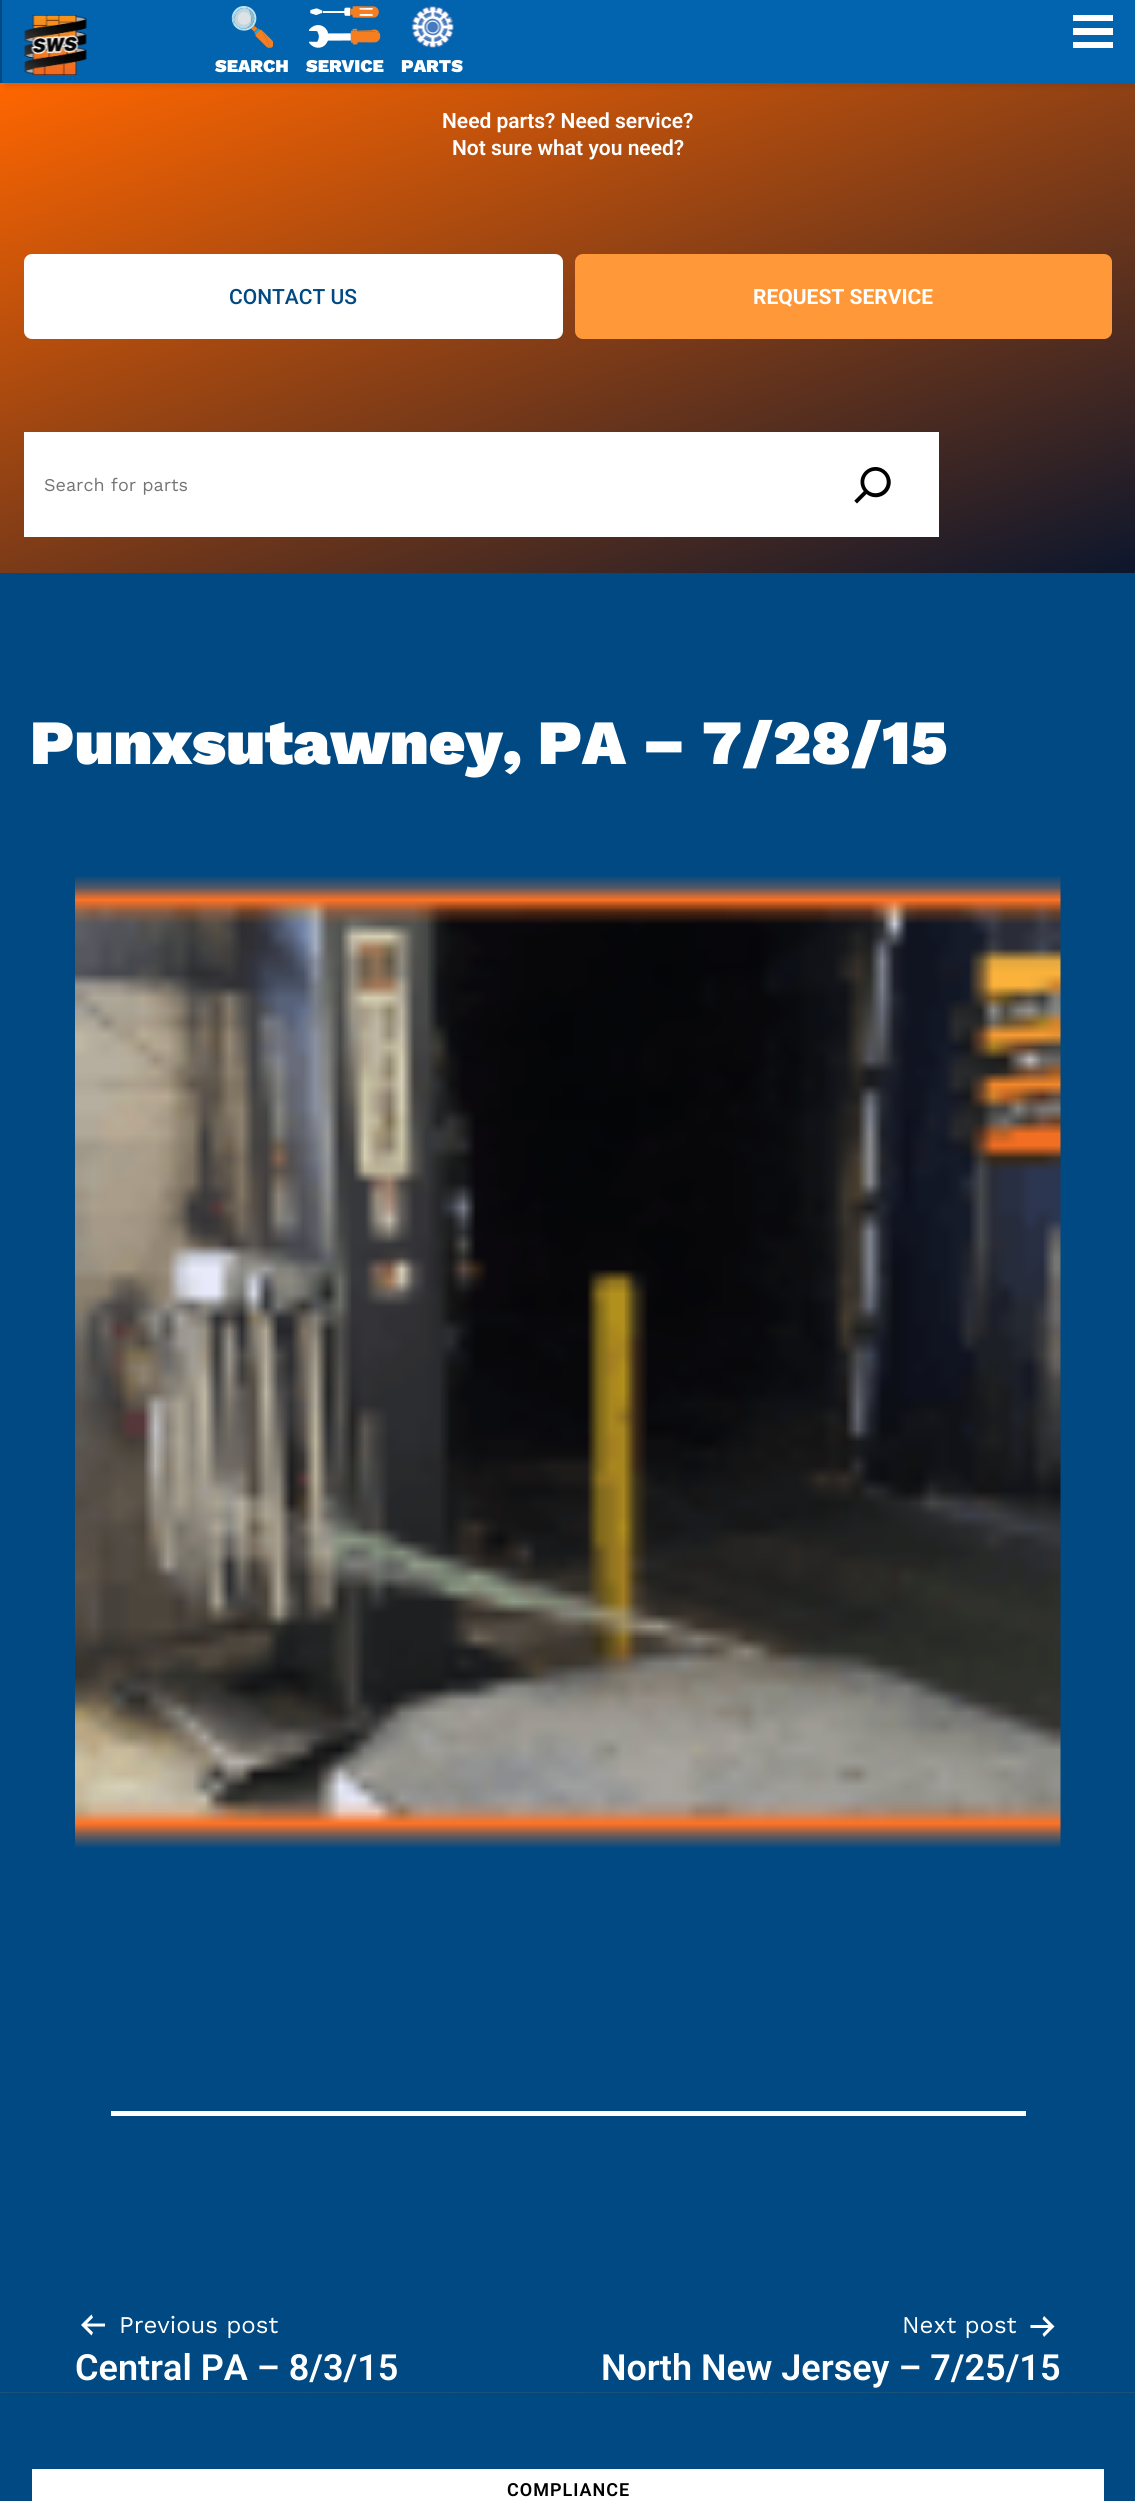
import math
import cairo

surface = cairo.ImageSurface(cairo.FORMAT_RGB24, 1135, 2501)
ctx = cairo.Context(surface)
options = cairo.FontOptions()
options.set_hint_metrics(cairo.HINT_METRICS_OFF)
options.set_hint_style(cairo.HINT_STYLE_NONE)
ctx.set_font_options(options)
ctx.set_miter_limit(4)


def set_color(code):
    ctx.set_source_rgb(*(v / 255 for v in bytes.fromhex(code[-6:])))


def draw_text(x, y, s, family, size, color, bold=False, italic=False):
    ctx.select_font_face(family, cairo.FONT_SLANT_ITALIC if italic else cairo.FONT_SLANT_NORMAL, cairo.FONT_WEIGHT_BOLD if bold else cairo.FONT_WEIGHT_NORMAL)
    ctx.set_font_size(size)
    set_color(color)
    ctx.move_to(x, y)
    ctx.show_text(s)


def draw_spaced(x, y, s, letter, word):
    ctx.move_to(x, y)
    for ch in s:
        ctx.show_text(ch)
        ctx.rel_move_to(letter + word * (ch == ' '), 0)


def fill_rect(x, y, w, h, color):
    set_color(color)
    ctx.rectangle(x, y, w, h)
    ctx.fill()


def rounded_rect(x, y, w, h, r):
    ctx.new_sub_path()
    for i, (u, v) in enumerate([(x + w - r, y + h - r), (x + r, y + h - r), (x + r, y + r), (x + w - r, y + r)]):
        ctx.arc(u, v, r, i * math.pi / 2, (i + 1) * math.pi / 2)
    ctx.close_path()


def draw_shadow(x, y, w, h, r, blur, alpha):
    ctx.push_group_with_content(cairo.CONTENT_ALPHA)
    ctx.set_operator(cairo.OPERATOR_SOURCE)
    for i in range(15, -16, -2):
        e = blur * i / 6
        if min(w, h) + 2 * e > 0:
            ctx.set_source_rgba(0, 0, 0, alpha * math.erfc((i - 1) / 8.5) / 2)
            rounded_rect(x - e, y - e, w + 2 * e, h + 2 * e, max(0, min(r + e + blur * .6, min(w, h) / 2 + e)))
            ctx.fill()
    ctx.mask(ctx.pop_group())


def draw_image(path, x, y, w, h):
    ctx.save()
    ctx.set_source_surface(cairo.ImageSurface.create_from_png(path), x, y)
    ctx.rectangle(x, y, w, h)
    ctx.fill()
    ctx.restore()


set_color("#004982")
ctx.paint()
gradient = cairo.LinearGradient(423, -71, 713, 727)
gradient.add_color_stop_rgba(0, 1, 0.4, 0, 1)
gradient.add_color_stop_rgba(1, 0.047, 0.086, 0.173, 1)
ctx.set_source(gradient)
ctx.rectangle(0, 83, 1135, 490)
ctx.fill()
set_color("#000000")
draw_shadow(5, 3, 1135, 83, 0, 3, 0.1)
fill_rect(2, 0, 1133, 83, "#0263af")
draw_image("assets/img1.png", 24, 15, 63, 60)
fill_rect(1073, 15, 40, 6, "#ffffff")
fill_rect(1073, 28, 40, 7, "#ffffff")
fill_rect(1073, 42, 40, 6, "#ffffff")
draw_image("assets/img2.png", 231, 6, 42, 42)
draw_text(215, 72, "SEARCH", "Work Sans Black", 18, "#ffffff")
draw_image("assets/img3.png", 309, 6, 72, 42)
draw_text(306, 72, "SERVICE", "Work Sans Black", 18, "#ffffff")
draw_image("assets/img4.png", 411, 6, 43, 42)
draw_text(401, 72, "PARTS", "Work Sans Black", 18, "#ffffff")
draw_text(442, 128, "Need parts? Need service?", "Roboto SemiBold", 21, "#ffffff")
draw_text(452, 155, "Not sure what you need?", "Roboto SemiBold", 21, "#ffffff")
rounded_rect(24, 254, 539, 85, 8)
ctx.fill()
draw_text(229, 304, "CONTACT US", "Roboto Medium", 21, "#004982")
set_color("#ff9838")
rounded_rect(575, 254, 537, 85, 8)
ctx.fill()
draw_text(753, 304, "REQUEST SERVICE", "Roboto", 21, "#ffffff", bold=True)
fill_rect(24, 432, 915, 105, "#ffffff")
draw_text(44, 491, "Search for parts", "Work Sans", 18, "#757575")
draw_image("assets/img5.png", 854, 467, 37, 37)
draw_text(30, 764, "Punxsutawney, PA – 7/28/15", "Work Sans Black", 63, "#ffffff")
draw_image("assets/img6.png", 75, 876, 986, 972)
fill_rect(111, 2111, 915, 5, "#ffffff")
draw_image("assets/img7.png", 81, 2314, 24, 22)
draw_text(119, 2333, "Previous post", "Work Sans", 24, "#ffffff")
draw_text(75, 2380, "Central PA – 8/3/15", "Roboto SemiBold", 36, "#ffffff")
draw_text(902, 2333, "Next post", "Work Sans", 24, "#ffffff")
draw_image("assets/img8.png", 1030, 2316, 25, 21)
draw_text(601, 2380, "North New Jersey – 7/25/15", "Roboto SemiBold", 36, "#ffffff")
draw_image("assets/img9.png", 0, 2392, 1135, 109)
fill_rect(32, 2469, 1072, 32, "#ffffff")
ctx.set_font_size(18)
set_color("#000000")
draw_spaced(507, 2496, "COMPLIANCE", 1, 0)
surface.write_to_png("output.png")
